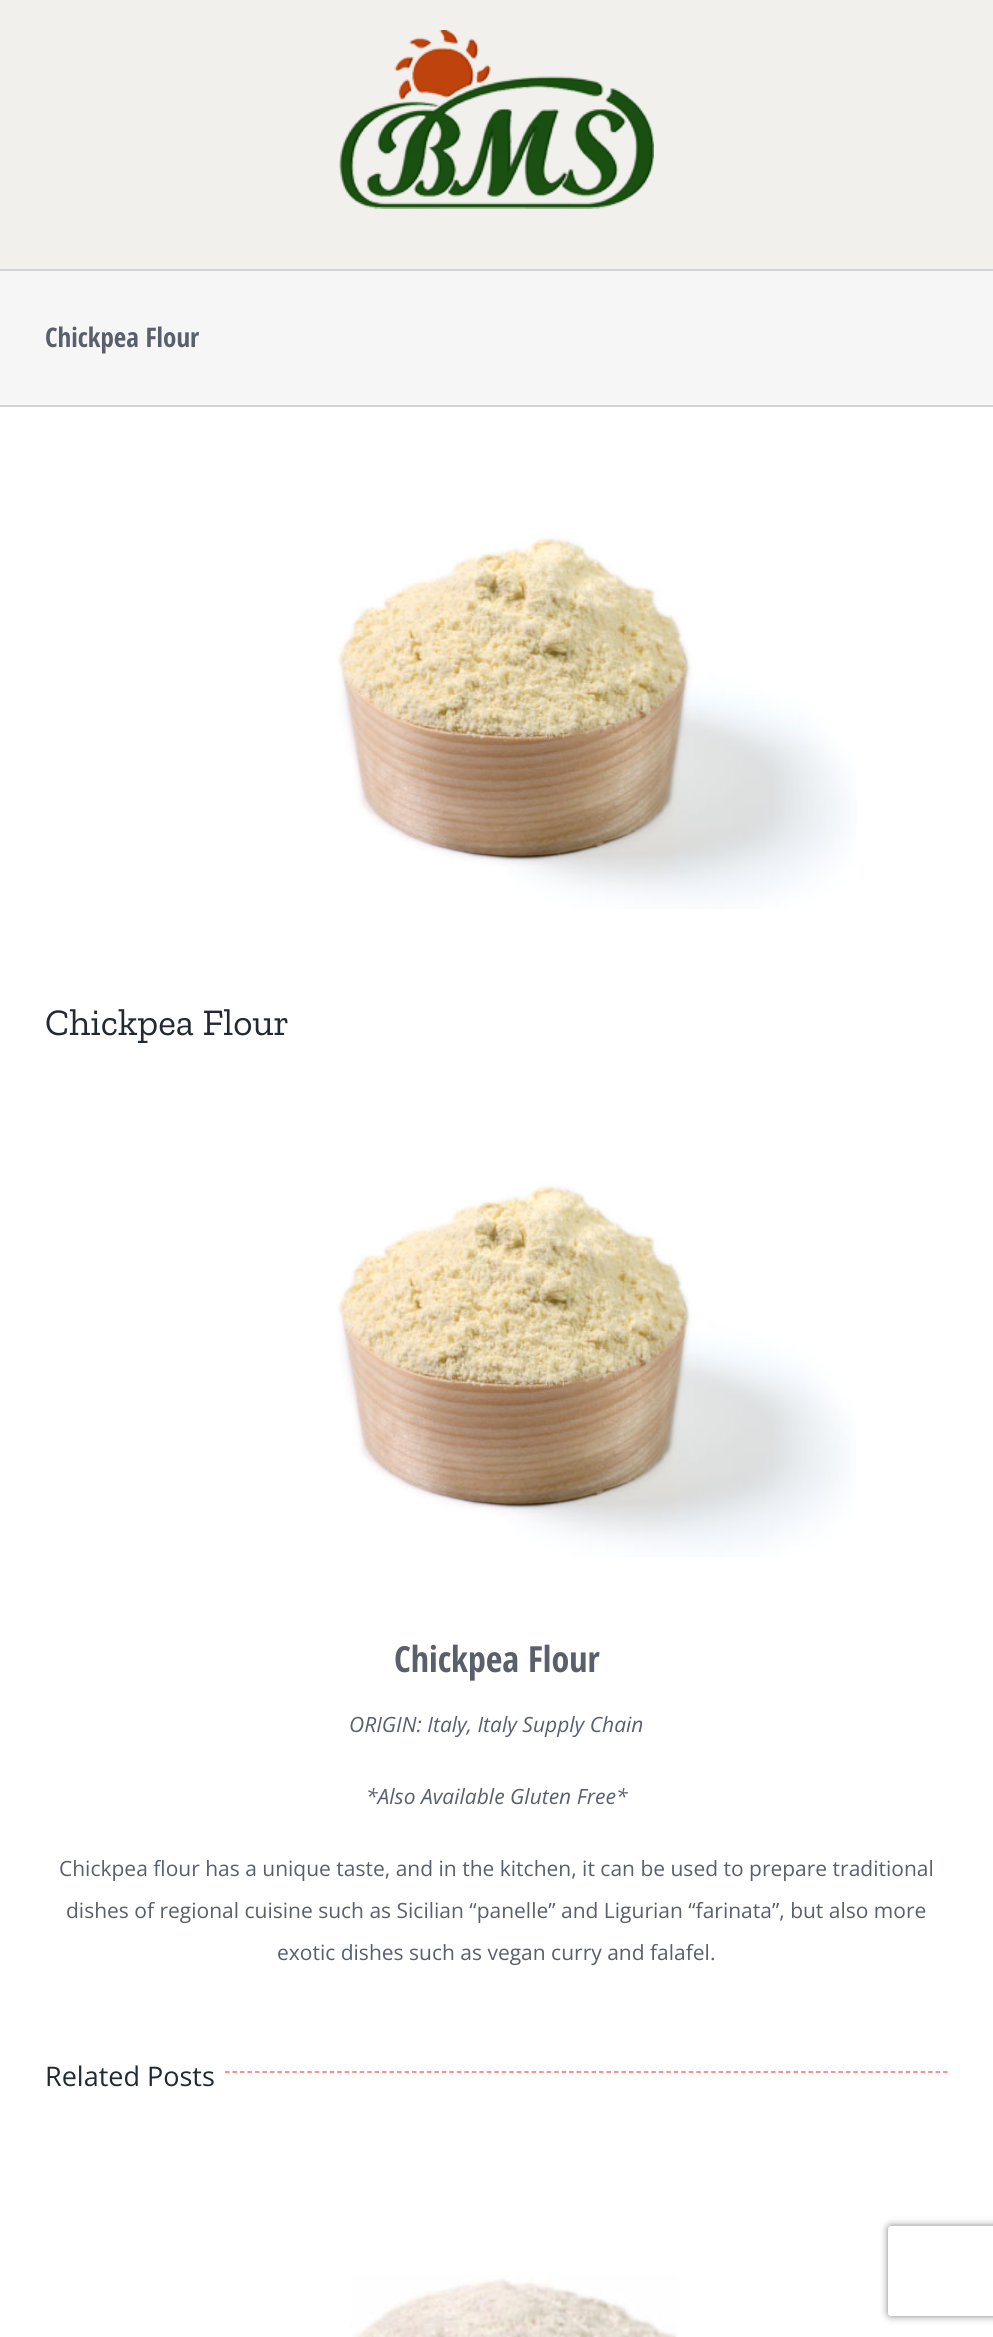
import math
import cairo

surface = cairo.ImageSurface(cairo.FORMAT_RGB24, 993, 2337)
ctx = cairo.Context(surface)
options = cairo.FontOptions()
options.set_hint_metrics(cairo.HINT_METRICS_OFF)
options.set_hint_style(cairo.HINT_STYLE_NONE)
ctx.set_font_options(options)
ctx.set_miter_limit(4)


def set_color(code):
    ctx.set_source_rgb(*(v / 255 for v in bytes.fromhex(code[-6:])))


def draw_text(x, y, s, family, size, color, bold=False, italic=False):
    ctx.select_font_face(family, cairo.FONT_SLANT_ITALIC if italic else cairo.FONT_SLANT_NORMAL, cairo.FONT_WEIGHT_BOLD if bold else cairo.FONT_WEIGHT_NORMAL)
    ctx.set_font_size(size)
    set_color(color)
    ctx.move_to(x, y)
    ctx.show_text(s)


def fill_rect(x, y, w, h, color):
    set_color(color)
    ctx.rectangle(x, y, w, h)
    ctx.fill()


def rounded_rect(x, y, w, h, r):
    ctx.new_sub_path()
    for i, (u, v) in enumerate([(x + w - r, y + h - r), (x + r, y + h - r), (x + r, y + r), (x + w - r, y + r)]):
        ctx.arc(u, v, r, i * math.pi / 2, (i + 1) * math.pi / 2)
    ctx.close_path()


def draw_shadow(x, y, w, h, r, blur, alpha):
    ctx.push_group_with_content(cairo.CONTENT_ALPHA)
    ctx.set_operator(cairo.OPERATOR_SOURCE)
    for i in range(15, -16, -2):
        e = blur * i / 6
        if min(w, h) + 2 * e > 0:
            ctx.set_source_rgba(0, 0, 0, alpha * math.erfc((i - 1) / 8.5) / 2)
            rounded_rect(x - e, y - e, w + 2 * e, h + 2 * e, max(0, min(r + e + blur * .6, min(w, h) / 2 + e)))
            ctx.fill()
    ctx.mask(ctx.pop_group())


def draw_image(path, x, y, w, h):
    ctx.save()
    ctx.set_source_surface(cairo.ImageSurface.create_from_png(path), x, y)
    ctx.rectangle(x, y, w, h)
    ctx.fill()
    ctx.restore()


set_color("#ffffff")
ctx.paint()
fill_rect(0, 0, 993, 269, "#f1f0ec")
draw_image("assets/img1.png", 339, 30, 315, 179)
fill_rect(0, 271, 993, 134, "#f6f6f6")
fill_rect(0, 269, 993, 2, "#d2d3d4")
fill_rect(0, 405, 993, 2, "#d2d3d4")
draw_text(45, 347, "Chickpea Flour", "Open Sans Condensed", 27, "#595f6b", bold=True)
draw_image("assets/img2.png", 337, 534, 520, 375)
draw_text(45, 1035, "Chickpea Flour", "Zilla Slab", 37.5, "#212934")
draw_image("assets/img3.png", 337, 1182, 519, 375)
draw_text(394, 1672, "Chickpea Flour", "Open Sans Condensed", 36, "#595f6b", bold=True)
draw_text(349, 1732, "ORIGIN: Italy, Italy Supply Chain", "Open Sans", 21, "#595f6b", italic=True)
draw_text(366, 1804, "*Also Available Gluten Free*", "Open Sans", 21, "#595f6b", italic=True)
draw_text(59, 1876, "Chickpea flour has a unique taste, and in the kitchen, it can be used to prepare traditional", "Open Sans", 21, "#595f6b")
draw_text(66, 1918, "dishes of regional cuisine such as Sicilian “panelle” and Ligurian “farinata”, but also more", "Open Sans", 21, "#595f6b")
draw_text(277, 1960, "exotic dishes such as vegan curry and falafel.", "Open Sans", 21, "#595f6b")
draw_text(45, 2086, "Related Posts", "Open Sans", 27, "#212934")
ctx.new_path()
ctx.move_to(225, 2072)
ctx.line_to(948, 2072)
set_color("#f46f72")
ctx.set_line_width(1.5)
ctx.set_dash([4.5, 2.98])
ctx.stroke()
draw_image("assets/img4.png", 350, 2275, 328, 62)
ctx.save()
ctx.set_fill_rule(cairo.FILL_RULE_EVEN_ODD)
ctx.new_path()
ctx.move_to(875, 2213)
ctx.line_to(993, 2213)
ctx.line_to(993, 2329)
ctx.line_to(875, 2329)
ctx.close_path()
ctx.move_to(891, 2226)
ctx.line_to(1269, 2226)
ctx.curve_to(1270.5, 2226, 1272, 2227.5, 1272, 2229)
ctx.line_to(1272, 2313)
ctx.curve_to(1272, 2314.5, 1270.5, 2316, 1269, 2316)
ctx.line_to(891, 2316)
ctx.curve_to(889.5, 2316, 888, 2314.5, 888, 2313)
ctx.line_to(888, 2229)
ctx.curve_to(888, 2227.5, 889.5, 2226, 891, 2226)
ctx.close_path()
ctx.clip()
set_color("#808080")
draw_shadow(888, 2226, 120, 90, 3, 4, 1)
ctx.restore()
surface.write_to_png("output.png")
